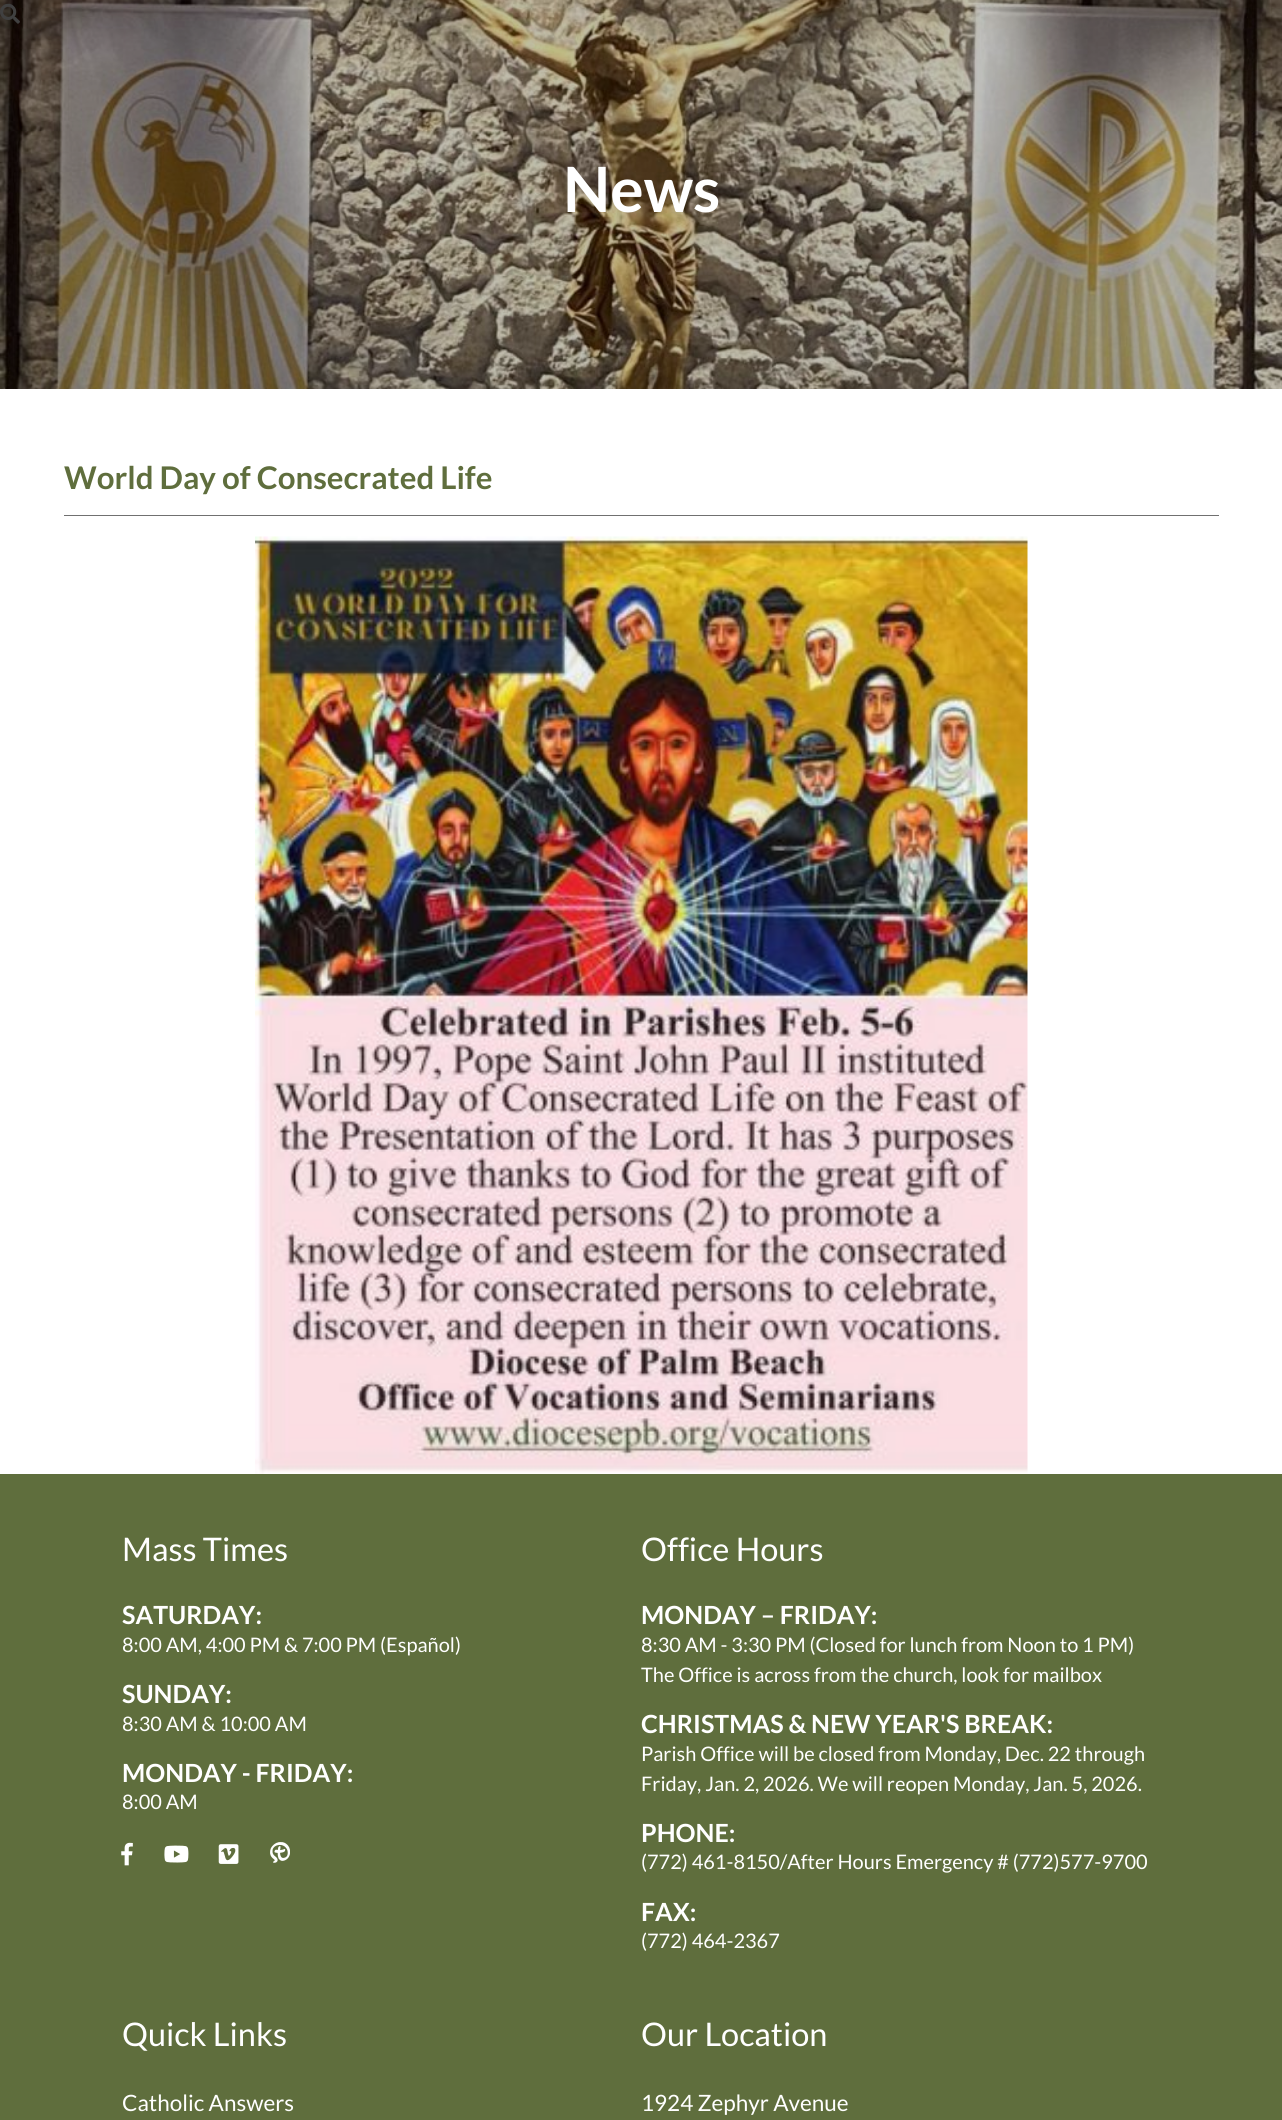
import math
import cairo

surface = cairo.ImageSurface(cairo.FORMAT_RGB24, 1282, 2120)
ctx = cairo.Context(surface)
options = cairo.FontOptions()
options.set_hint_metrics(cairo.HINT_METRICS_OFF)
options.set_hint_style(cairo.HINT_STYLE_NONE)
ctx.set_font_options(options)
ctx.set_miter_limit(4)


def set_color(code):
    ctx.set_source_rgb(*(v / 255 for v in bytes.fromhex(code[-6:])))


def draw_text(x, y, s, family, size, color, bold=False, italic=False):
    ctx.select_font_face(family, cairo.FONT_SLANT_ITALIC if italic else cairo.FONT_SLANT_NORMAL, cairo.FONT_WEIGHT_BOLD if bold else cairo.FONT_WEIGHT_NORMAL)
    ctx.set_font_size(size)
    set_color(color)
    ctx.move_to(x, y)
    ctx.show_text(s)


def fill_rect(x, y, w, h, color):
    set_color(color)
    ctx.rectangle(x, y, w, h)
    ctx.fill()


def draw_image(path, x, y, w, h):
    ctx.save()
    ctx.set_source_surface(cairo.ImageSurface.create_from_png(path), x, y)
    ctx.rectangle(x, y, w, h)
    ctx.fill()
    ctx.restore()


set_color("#ffffff")
ctx.paint()
draw_image("assets/img2.png", 0, 0, 1282, 389)
draw_image("assets/img1.png", 0, 3, 20, 21)
draw_text(563, 212, "News", "Lato", 62.5, "#ffffff", bold=True)
fill_rect(64, 515, 1155, 1, "#707070")
draw_text(64, 489, "World Day of Consecrated Life", "Lato", 31.25, "#5f6e3d", bold=True)
draw_image("assets/img3.png", 255, 536, 773, 938)
fill_rect(0, 1474, 1282, 646, "#5f6e3d")
draw_text(122, 1561, "Mass Times", "Lato", 32.5, "#ffffff")
draw_text(122, 1624, "SATURDAY:", "Lato", 25, "#ffffff", bold=True)
draw_text(122, 1652, "8:00 AM, 4:00 PM & 7:00 PM (Español)", "Lato", 20, "#ffffff")
draw_text(122, 1703, "SUNDAY:", "Lato", 25, "#ffffff", bold=True)
draw_text(122, 1731, "8:30 AM & 10:00 AM", "Lato", 20, "#ffffff")
draw_text(122, 1782, "MONDAY - FRIDAY:", "Lato", 25, "#ffffff", bold=True)
draw_text(122, 1809, "8:00 AM", "Lato", 20, "#ffffff")
draw_image("assets/img4.png", 121, 1842, 12, 24)
draw_image("assets/img5.png", 164, 1845, 25, 18)
draw_image("assets/img6.png", 218, 1844, 21, 20)
draw_image("assets/img7.png", 270, 1842, 20, 21)
draw_text(641, 1561, "Office Hours", "Lato", 32.5, "#ffffff")
draw_text(641, 1624, "MONDAY – FRIDAY:", "Lato", 25, "#ffffff", bold=True)
draw_text(641, 1652, "8:30 AM - 3:30 PM (Closed for lunch from Noon to 1 PM)", "Lato", 20, "#ffffff")
draw_text(641, 1682, "The Office is across from the church, look for mailbox", "Lato", 20, "#ffffff")
draw_text(641, 1733, "CHRISTMAS & NEW YEAR'S BREAK:", "Lato", 25, "#ffffff", bold=True)
draw_text(641, 1761, "Parish Office will be closed from Monday, Dec. 22 through", "Lato", 20, "#ffffff")
draw_text(641, 1791, "Friday, Jan. 2, 2026. We will reopen Monday, Jan. 5, 2026.", "Lato", 20, "#ffffff")
draw_text(641, 1842, "PHONE:", "Lato", 25, "#ffffff", bold=True)
draw_text(641, 1869, "(772) 461-8150/After Hours Emergency # (772)577-9700", "Lato", 20, "#ffffff")
draw_text(641, 1921, "FAX:", "Lato", 25, "#ffffff", bold=True)
draw_text(641, 1948, "(772) 464-2367", "Lato", 20, "#ffffff")
draw_text(122, 2046, "Quick Links", "Lato", 32.5, "#ffffff")
draw_text(122, 2111, "Catholic Answers", "Lato", 22.5, "#ffffff")
draw_text(641, 2046, "Our Location", "Lato", 32.5, "#ffffff")
draw_text(641, 2111, "1924 Zephyr Avenue", "Lato", 22.5, "#ffffff")
surface.write_to_png("output.png")
